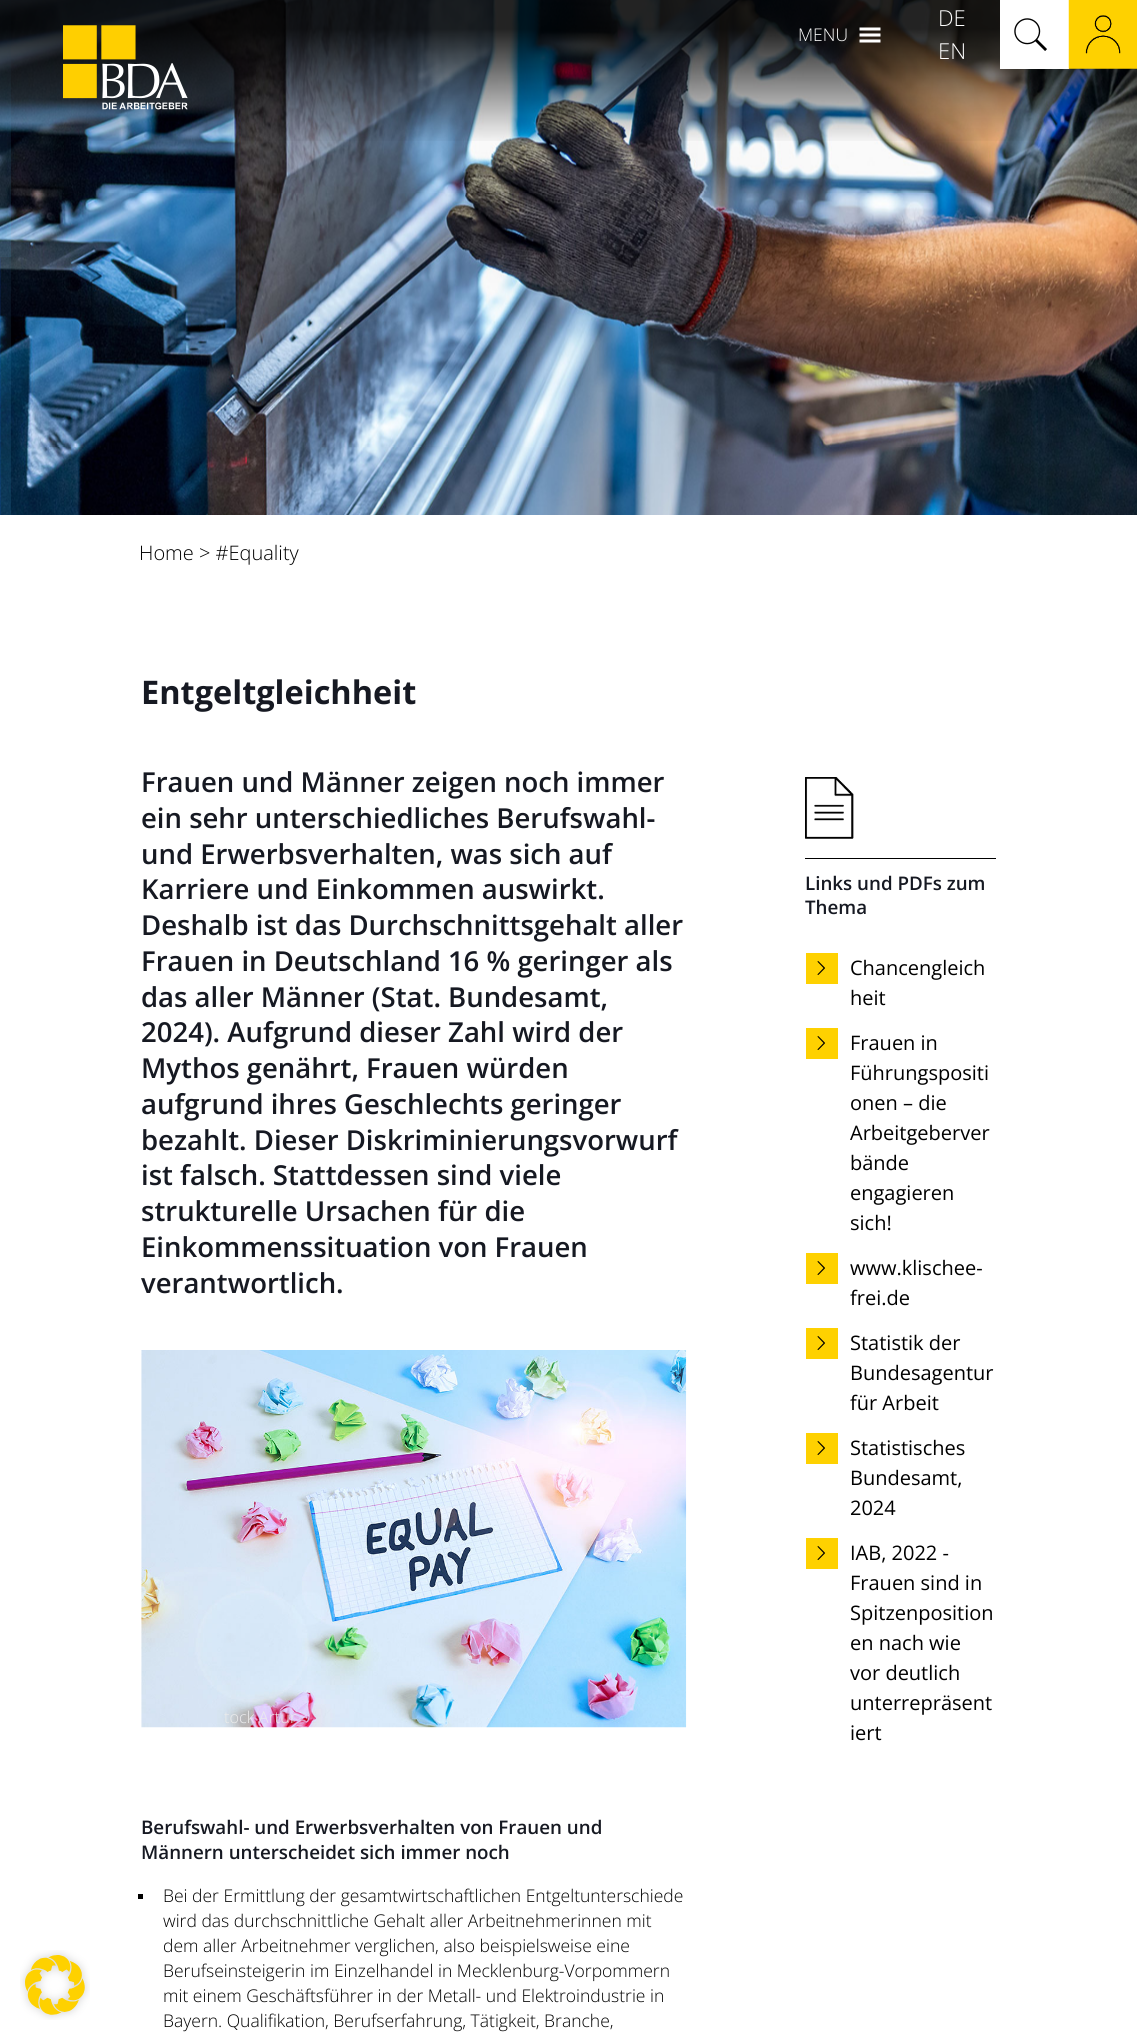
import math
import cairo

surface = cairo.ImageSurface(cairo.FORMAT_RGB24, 1137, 2039)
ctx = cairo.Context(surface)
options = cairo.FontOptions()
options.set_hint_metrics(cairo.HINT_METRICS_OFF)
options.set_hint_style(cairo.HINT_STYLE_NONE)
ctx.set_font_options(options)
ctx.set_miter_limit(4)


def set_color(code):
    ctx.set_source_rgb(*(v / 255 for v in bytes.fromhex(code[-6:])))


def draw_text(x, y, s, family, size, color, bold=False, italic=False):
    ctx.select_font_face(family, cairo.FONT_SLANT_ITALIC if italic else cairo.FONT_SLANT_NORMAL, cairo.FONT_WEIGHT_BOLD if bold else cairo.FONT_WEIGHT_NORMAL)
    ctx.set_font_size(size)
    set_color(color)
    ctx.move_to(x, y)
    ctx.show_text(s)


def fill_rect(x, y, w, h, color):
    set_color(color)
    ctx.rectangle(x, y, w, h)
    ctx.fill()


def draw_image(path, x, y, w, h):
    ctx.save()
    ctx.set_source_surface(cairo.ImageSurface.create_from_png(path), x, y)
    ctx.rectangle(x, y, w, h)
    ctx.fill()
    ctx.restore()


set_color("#ffffff")
ctx.paint()
draw_image("assets/img1.png", 20, 1950, 70, 70)
draw_image("assets/img2.png", 0, 0, 1137, 515)
draw_image("assets/img3.png", 0, 0, 11, 258)
draw_image("assets/img4.png", 0, 258, 1, 257)
draw_image("assets/img5.png", 0, 258, 11, 257)
gradient = cairo.LinearGradient(569, 144, 569, 0)
gradient.add_color_stop_rgba(0, 0, 0, 0, 0)
gradient.add_color_stop_rgba(0.8, 0, 0, 0, 0.86)
ctx.set_source(gradient)
ctx.rectangle(0, 0, 1137, 141)
ctx.fill()
draw_image("assets/img6.png", 63, 25, 125, 85)
draw_text(798, 41, "MENU", "Open Sans Light", 17.5, "#ffffff")
draw_image("assets/img7.png", 859, 27, 22, 16)
draw_text(938, 26, "DE", "Open Sans Light", 22, "#ffffff")
draw_text(938, 59, "EN", "Open Sans Light", 22, "#ffffff")
fill_rect(1000, 0, 69, 69, "#ffffff")
draw_image("assets/img8.png", 1014, 18, 33, 33)
draw_image("assets/img9.png", 1068, 0, 69, 69)
draw_text(139, 560, "Home > #Equality", "Open Sans Light", 20, "#000000")
draw_text(141, 704, "Entgeltgleichheit", "Open Sans", 32.5, "#161922", bold=True)
draw_text(141, 792, "Frauen und Männer zeigen noch immer", "Open Sans SemiBold", 27.5, "#161922")
draw_text(141, 828, "ein sehr unterschiedliches Berufswahl-", "Open Sans SemiBold", 27.5, "#161922")
draw_text(141, 864, "und Erwerbsverhalten, was sich auf", "Open Sans SemiBold", 27.5, "#161922")
draw_text(141, 899, "Karriere und Einkommen auswirkt.", "Open Sans SemiBold", 27.5, "#161922")
draw_text(141, 935, "Deshalb ist das Durchschnittsgehalt aller", "Open Sans SemiBold", 27.5, "#161922")
draw_text(141, 971, "Frauen in Deutschland 16 % geringer als", "Open Sans SemiBold", 27.5, "#161922")
draw_text(141, 1007, "das aller Männer (Stat. Bundesamt,", "Open Sans SemiBold", 27.5, "#161922")
draw_text(141, 1042, "2024). Aufgrund dieser Zahl wird der", "Open Sans SemiBold", 27.5, "#161922")
draw_text(141, 1078, "Mythos genährt, Frauen würden", "Open Sans SemiBold", 27.5, "#161922")
draw_text(141, 1114, "aufgrund ihres Geschlechts geringer", "Open Sans SemiBold", 27.5, "#161922")
draw_text(141, 1150, "bezahlt. Dieser Diskriminierungsvorwurf", "Open Sans SemiBold", 27.5, "#161922")
draw_text(141, 1185, "ist falsch. Stattdessen sind viele", "Open Sans SemiBold", 27.5, "#161922")
draw_text(141, 1221, "strukturelle Ursachen für die", "Open Sans SemiBold", 27.5, "#161922")
draw_text(141, 1257, "Einkommenssituation von Frauen", "Open Sans SemiBold", 27.5, "#161922")
draw_text(141, 1293, "verantwortlich.", "Open Sans SemiBold", 27.5, "#161922")
draw_image("assets/img10.png", 141, 1350, 546, 378)
draw_text(224, 1723, "tock Artur", "Open Sans Light", 16.25, "#ececec")
draw_text(141, 1834, "Berufswahl- und Erwerbsverhalten von Frauen und", "Open Sans SemiBold", 18.75, "#161922")
draw_text(141, 1859, "Männern unterscheidet sich immer noch", "Open Sans SemiBold", 18.75, "#161922")
fill_rect(138, 1894, 5, 5, "#000000")
draw_text(163, 1902, "Bei der Ermittlung der gesamtwirtschaftlichen Entgeltunterschiede", "Open Sans Light", 17.5, "#000000")
draw_text(163, 1927, "wird das durchschnittliche Gehalt aller Arbeitnehmerinnen mit", "Open Sans Light", 17.5, "#000000")
draw_text(163, 1952, "dem aller Arbeitnehmer verglichen, also beispielsweise eine", "Open Sans Light", 17.5, "#000000")
draw_text(163, 1977, "Berufseinsteigerin im Einzelhandel in Mecklenburg-Vorpommern", "Open Sans Light", 17.5, "#000000")
draw_text(163, 2002, "mit einem Geschäftsführer in der Metall- und Elektroindustrie in", "Open Sans Light", 17.5, "#000000")
draw_text(163, 2027, "Bayern. Qualifikation, Berufserfahrung, Tätigkeit, Branche,", "Open Sans Light", 17.5, "#000000")
draw_image("assets/img11.png", 805, 777, 49, 62)
fill_rect(805, 858, 191, 1, "#000000")
draw_text(805, 890, "Links und PDFs zum", "Open Sans SemiBold", 18.75, "#161922")
draw_text(805, 914, "Thema", "Open Sans SemiBold", 18.75, "#161922")
fill_rect(806, 953, 32, 31, "#fed100")
draw_image("assets/img12.png", 817, 961, 8, 14)
draw_text(850, 975, "Chancengleich", "Open Sans", 20, "#000000")
draw_text(850, 1005, "heit", "Open Sans", 20, "#000000")
fill_rect(806, 1028, 32, 31, "#fed100")
draw_image("assets/img12.png", 817, 1036, 8, 14)
draw_text(850, 1050, "Frauen in", "Open Sans", 20, "#000000")
draw_text(850, 1080, "Führungspositi", "Open Sans", 20, "#000000")
draw_text(850, 1110, "onen – die", "Open Sans", 20, "#000000")
draw_text(850, 1140, "Arbeitgeberver", "Open Sans", 20, "#000000")
draw_text(850, 1170, "bände", "Open Sans", 20, "#000000")
draw_text(850, 1200, "engagieren", "Open Sans", 20, "#000000")
draw_text(850, 1230, "sich!", "Open Sans", 20, "#000000")
fill_rect(806, 1253, 32, 31, "#fed100")
draw_image("assets/img12.png", 817, 1261, 8, 14)
draw_text(850, 1275, "www.klischee-", "Open Sans", 20, "#000000")
draw_text(850, 1305, "frei.de", "Open Sans", 20, "#000000")
fill_rect(806, 1328, 32, 31, "#fed100")
draw_image("assets/img12.png", 817, 1336, 8, 14)
draw_text(850, 1350, "Statistik der", "Open Sans", 20, "#000000")
draw_text(850, 1380, "Bundesagentur", "Open Sans", 20, "#000000")
draw_text(850, 1410, "für Arbeit", "Open Sans", 20, "#000000")
fill_rect(806, 1433, 32, 31, "#fed100")
draw_image("assets/img12.png", 817, 1441, 8, 14)
draw_text(850, 1455, "Statistisches", "Open Sans", 20, "#000000")
draw_text(850, 1485, "Bundesamt,", "Open Sans", 20, "#000000")
draw_text(850, 1515, "2024", "Open Sans", 20, "#000000")
fill_rect(806, 1538, 32, 31, "#fed100")
draw_image("assets/img12.png", 817, 1546, 8, 14)
draw_text(850, 1560, "IAB, 2022 -", "Open Sans", 20, "#000000")
draw_text(850, 1590, "Frauen sind in", "Open Sans", 20, "#000000")
draw_text(850, 1620, "Spitzenposition", "Open Sans", 20, "#000000")
draw_text(850, 1650, "en nach wie", "Open Sans", 20, "#000000")
draw_text(850, 1680, "vor deutlich", "Open Sans", 20, "#000000")
draw_text(850, 1710, "unterrepräsent", "Open Sans", 20, "#000000")
draw_text(850, 1740, "iert", "Open Sans", 20, "#000000")
surface.write_to_png("output.png")
